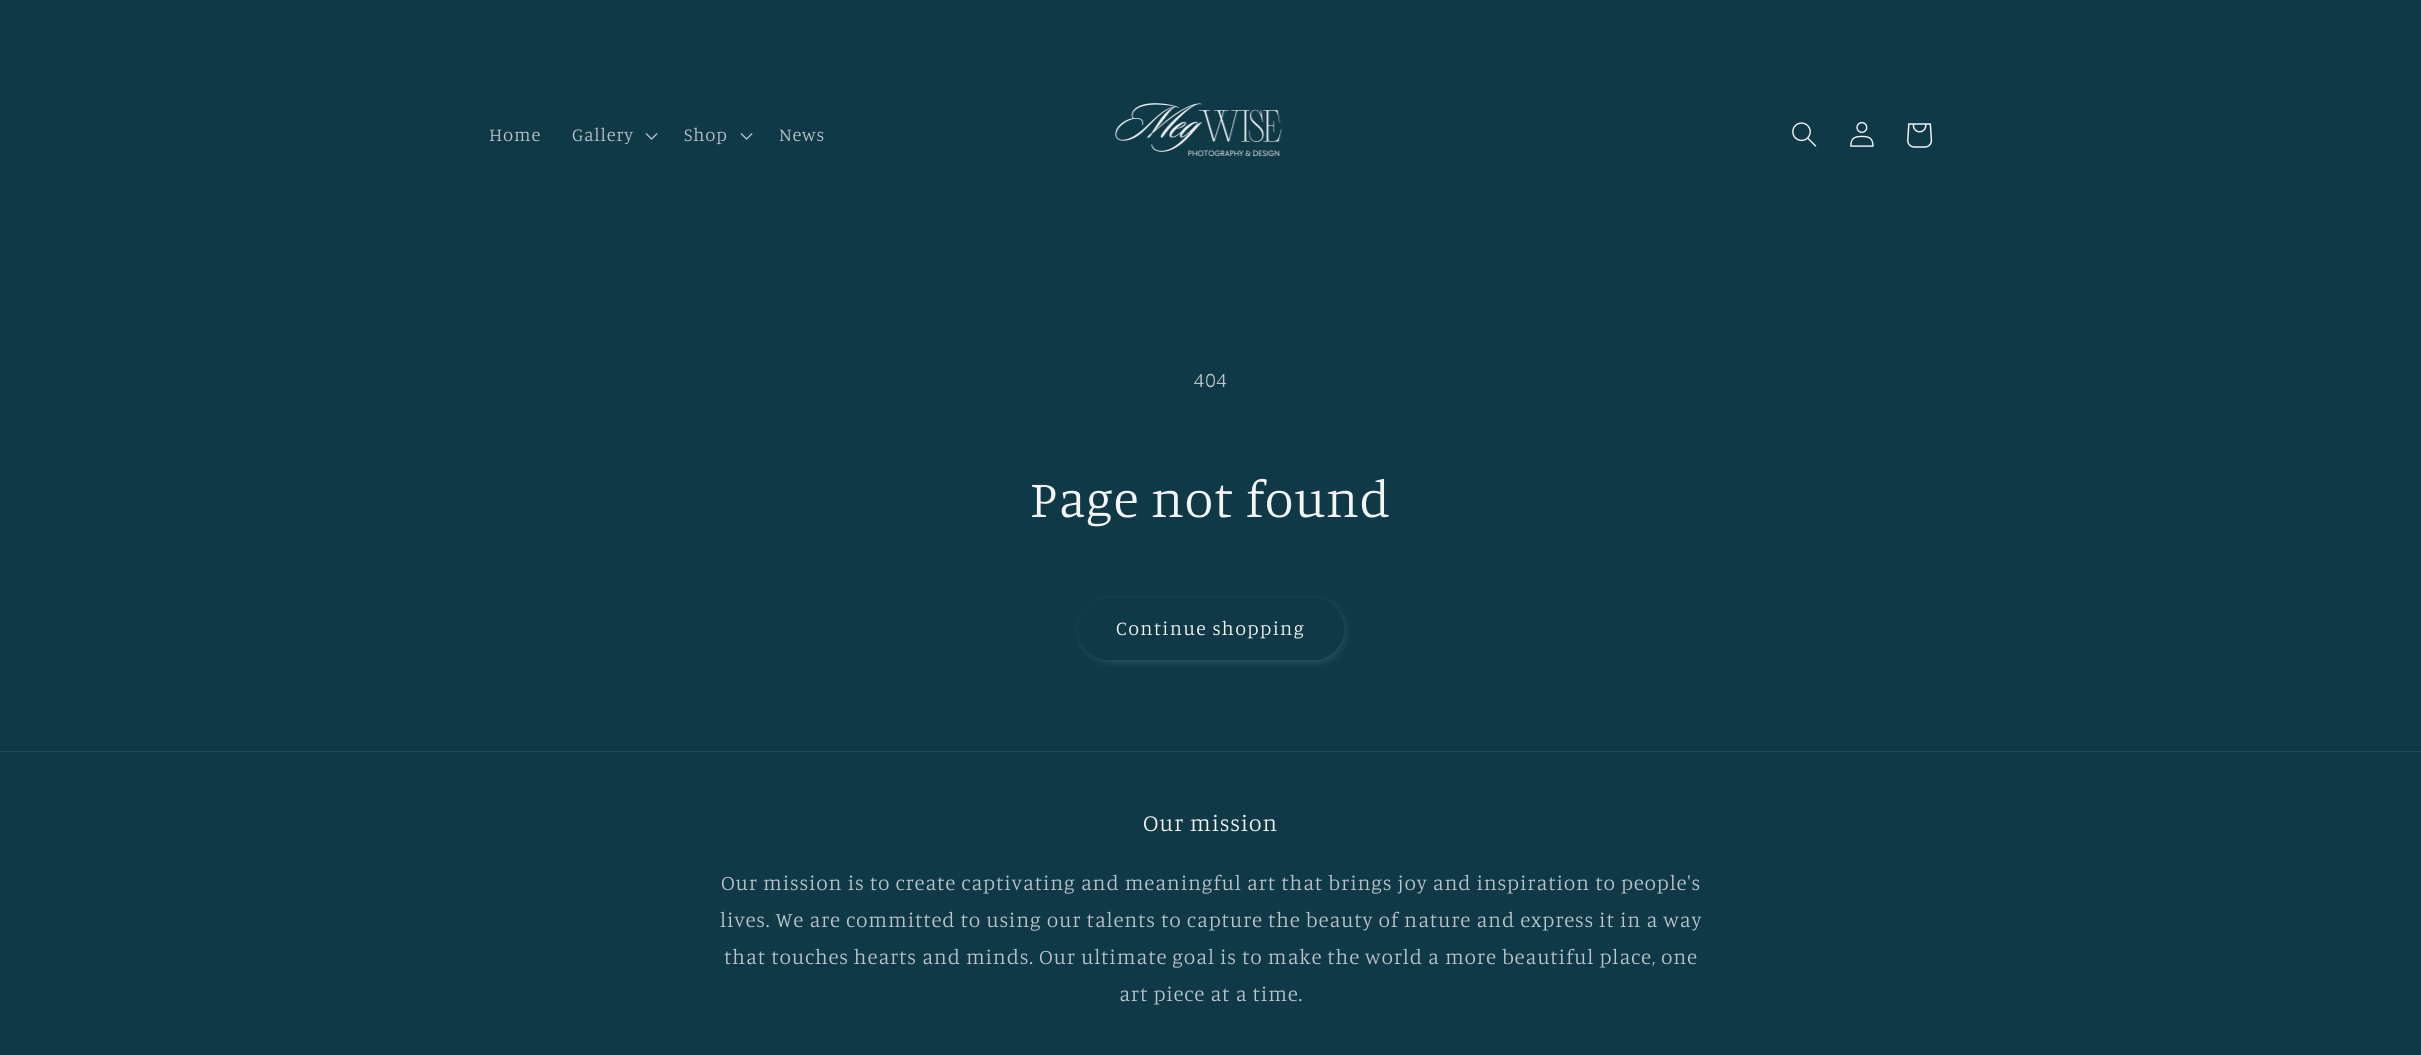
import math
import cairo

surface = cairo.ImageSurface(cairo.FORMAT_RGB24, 2421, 1055)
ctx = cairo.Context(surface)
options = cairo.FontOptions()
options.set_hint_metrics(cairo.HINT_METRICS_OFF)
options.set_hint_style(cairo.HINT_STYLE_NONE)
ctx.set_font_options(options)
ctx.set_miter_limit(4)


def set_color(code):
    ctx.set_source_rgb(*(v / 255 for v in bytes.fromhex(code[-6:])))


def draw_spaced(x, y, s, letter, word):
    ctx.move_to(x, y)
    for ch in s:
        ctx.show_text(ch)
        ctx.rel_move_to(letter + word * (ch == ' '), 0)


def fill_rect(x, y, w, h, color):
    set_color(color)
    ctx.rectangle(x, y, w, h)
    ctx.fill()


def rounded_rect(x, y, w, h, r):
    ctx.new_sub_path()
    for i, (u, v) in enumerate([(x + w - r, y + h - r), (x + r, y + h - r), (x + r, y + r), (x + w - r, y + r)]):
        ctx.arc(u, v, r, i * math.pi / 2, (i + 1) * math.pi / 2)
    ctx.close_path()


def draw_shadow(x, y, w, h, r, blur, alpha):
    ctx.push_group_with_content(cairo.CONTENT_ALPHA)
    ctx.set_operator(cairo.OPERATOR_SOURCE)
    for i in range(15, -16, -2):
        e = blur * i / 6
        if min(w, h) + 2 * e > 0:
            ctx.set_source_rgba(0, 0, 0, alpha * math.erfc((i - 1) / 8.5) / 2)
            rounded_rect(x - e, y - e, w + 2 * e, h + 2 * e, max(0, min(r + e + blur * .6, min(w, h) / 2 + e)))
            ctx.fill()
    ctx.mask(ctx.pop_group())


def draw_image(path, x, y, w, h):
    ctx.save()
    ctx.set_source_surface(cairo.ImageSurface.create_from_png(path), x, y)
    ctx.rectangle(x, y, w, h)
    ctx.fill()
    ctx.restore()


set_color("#103948")
ctx.paint()
ctx.select_font_face("Manuale Light")
ctx.set_font_size(18.5)
set_color("#bcc6ca")
draw_spaced(489, 141, "Home", 0.79, 0)
draw_spaced(572, 141, "Gallery", 0.79, 0)
draw_image("assets/img1.png", 645, 133, 13, 7)
draw_spaced(684, 141, "Shop", 0.79, 0)
draw_image("assets/img1.png", 740, 133, 13, 7)
draw_spaced(779, 141, "News", 0.79, 0)
draw_image("assets/img2.png", 1115, 103, 168, 54)
draw_image("assets/img3.png", 1792, 122, 25, 25)
draw_image("assets/img4.png", 1850, 121, 24, 26)
draw_image("assets/img5.png", 1907, 123, 26, 25)
ctx.set_font_size(21)
draw_spaced(1194, 387, "404", 0.79, 0)
ctx.set_font_size(52.5)
set_color("#f5f5f5")
draw_spaced(1030, 517, "Page not found", 0.79, 0)
set_color("#f5f5f5")
draw_shadow(1080, 600, 266, 63, 31.5, 3, 0.1)
set_color("#103948")
rounded_rect(1078, 598, 266, 62, 31)
ctx.fill()
rounded_rect(1078.5, 598.5, 265, 61, 30.5)
ctx.set_line_width(1)
ctx.stroke()
ctx.set_font_size(19.75)
set_color("#fcfcfc")
draw_spaced(1116, 635, "Continue shopping", 1.3, 0)
fill_rect(0, 751, 2421, 1, "#224856")
ctx.set_font_size(23.5)
set_color("#f5f5f5")
draw_spaced(1143, 831, "Our mission", 0.79, 0)
ctx.set_font_size(21)
set_color("#bcc6ca")
draw_spaced(721, 890, "Our mission is to create captivating and meaningful art that brings joy and inspiration to people's", 0.79, 0)
draw_spaced(720, 927, "lives. We are committed to using our talents to capture the beauty of nature and express it in a way", 0.79, 0)
draw_spaced(724, 964, "that touches hearts and minds. Our ultimate goal is to make the world a more beautiful place, one", 0.79, 0)
draw_spaced(1119, 1001, "art piece at a time.", 0.79, 0)
surface.write_to_png("output.png")
